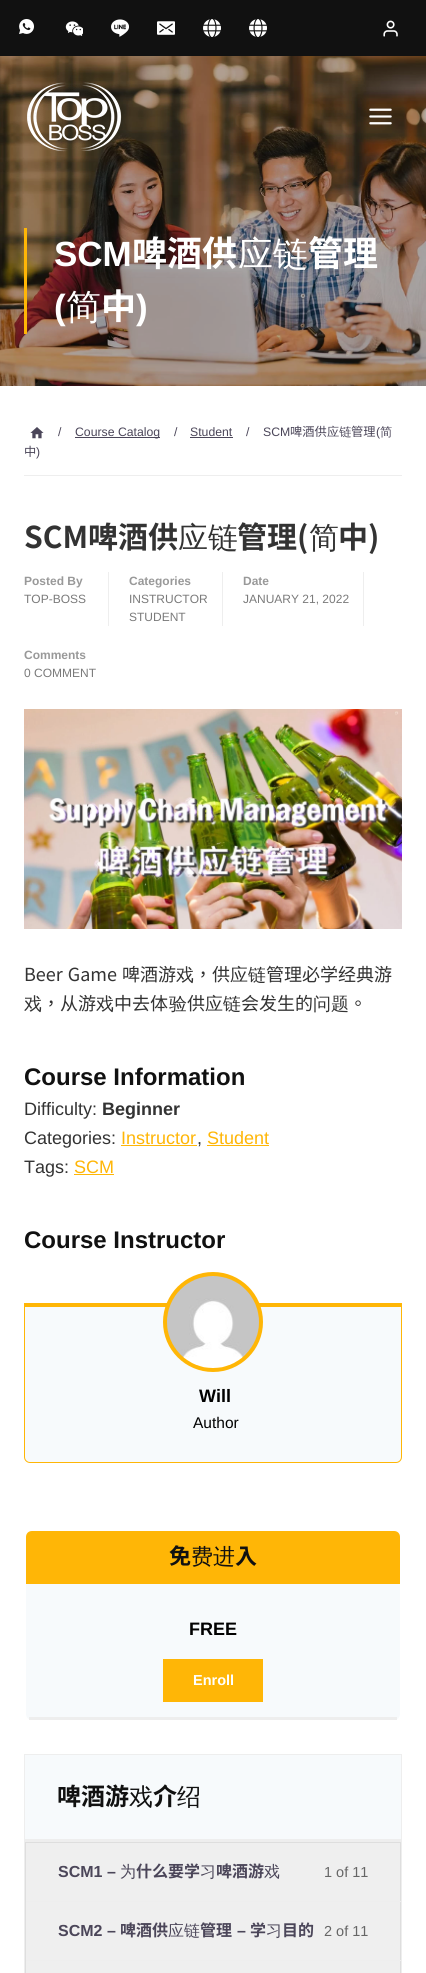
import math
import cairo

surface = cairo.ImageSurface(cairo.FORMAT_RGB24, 426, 1973)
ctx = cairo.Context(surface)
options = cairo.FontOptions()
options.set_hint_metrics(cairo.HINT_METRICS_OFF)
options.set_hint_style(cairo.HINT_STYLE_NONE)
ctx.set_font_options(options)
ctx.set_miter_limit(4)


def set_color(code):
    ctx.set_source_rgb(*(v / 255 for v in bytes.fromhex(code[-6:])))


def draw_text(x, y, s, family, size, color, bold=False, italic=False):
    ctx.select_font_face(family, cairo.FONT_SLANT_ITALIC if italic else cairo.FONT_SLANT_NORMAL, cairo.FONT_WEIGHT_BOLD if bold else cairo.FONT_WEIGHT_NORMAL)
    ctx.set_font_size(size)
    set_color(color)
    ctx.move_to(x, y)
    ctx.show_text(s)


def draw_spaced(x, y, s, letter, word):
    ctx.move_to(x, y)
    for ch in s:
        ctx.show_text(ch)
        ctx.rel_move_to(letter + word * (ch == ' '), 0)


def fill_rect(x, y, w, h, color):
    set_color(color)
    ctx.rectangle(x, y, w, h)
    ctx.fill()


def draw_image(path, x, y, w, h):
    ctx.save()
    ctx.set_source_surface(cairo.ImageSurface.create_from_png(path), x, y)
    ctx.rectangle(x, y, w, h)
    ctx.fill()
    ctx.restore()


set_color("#ffffff")
ctx.paint()
fill_rect(0, 0, 426, 56, "#111111")
draw_image("assets/img1.png", 19, 19, 15, 15)
draw_image("assets/img2.png", 65, 21, 18, 15)
draw_image("assets/img3.png", 111, 19, 18, 18)
draw_image("assets/img4.png", 157, 21, 18, 14)
draw_image("assets/img5.png", 203, 19, 18, 18)
draw_image("assets/img5.png", 249, 19, 18, 18)
draw_image("assets/img6.png", 383, 20, 15, 17)
draw_image("assets/img9.png", 0, 56, 426, 330)
draw_image("assets/img7.png", 27, 82, 95, 70)
draw_image("assets/img8.png", 369, 108, 23, 17)
fill_rect(24, 228, 3, 106, "#ffb606")
draw_text(54, 266, "SCM", "Liberation Sans", 35, "#ffffff", bold=True)
draw_text(132, 266, "啤酒供", "Noto Sans TC", 35, "#ffffff", bold=True)
draw_text(238, 266, "应链", "WenQuanYi Zen Hei Medium", 35, "#ffffff")
draw_text(308, 266, "管理", "Noto Sans TC", 35, "#ffffff", bold=True)
draw_text(54, 319, "(", "Liberation Sans", 35, "#ffffff", bold=True)
draw_text(66, 319, "简", "WenQuanYi Zen Hei Medium", 35, "#ffffff")
draw_text(101, 319, "中", "Noto Sans TC", 35, "#ffffff", bold=True)
draw_text(136, 319, ")", "Liberation Sans", 35, "#ffffff", bold=True)
fill_rect(24, 475, 378, 1, "#eeeeee")
draw_image("assets/img10.png", 30, 427, 14, 12)
draw_text(58, 436, "/", "Liberation Sans", 12.25, "#4b4659")
fill_rect(75, 437, 85, 1, "#4b4659")
draw_text(75, 436, "Course Catalog", "Liberation Sans", 12.25, "#4b4659")
draw_text(174, 436, "/", "Liberation Sans", 12.25, "#4b4659")
draw_text(190, 436, "Student", "Liberation Sans", 12.25, "#4b4659")
fill_rect(190, 437, 43, 1, "#4b4659")
draw_text(246, 436, "/", "Liberation Sans", 12.25, "#4b4659")
draw_text(263, 436, "SCM", "Liberation Sans", 12.25, "#4b4659")
draw_text(290, 436, "啤酒供", "Noto Sans TC", 12.25, "#4b4659")
draw_text(327, 436, "应链", "WenQuanYi Zen Hei Medium", 12.25, "#4b4659")
draw_text(351, 436, "管理", "Noto Sans TC", 12.25, "#4b4659")
draw_text(376, 436, "(", "Liberation Sans", 12.25, "#4b4659")
draw_text(380, 436, "简", "WenQuanYi Zen Hei Medium", 12.25, "#4b4659")
draw_text(24, 456, "中", "Noto Sans TC", 12.25, "#4b4659")
draw_text(36, 456, ")", "Liberation Sans", 12.25, "#4b4659")
draw_text(24, 548, "SCM啤酒供", "Noto Sans TC", 30, "#333333", bold=True)
draw_text(178, 548, "应链", "WenQuanYi Zen Hei Medium", 30, "#333333")
draw_text(237, 548, "管理(", "Noto Sans TC", 30, "#333333", bold=True)
draw_text(309, 548, "简", "WenQuanYi Zen Hei Medium", 30, "#333333")
draw_text(338, 548, "中)", "Noto Sans TC", 30, "#333333", bold=True)
fill_rect(108, 572, 1, 54, "#eeeeee")
draw_text(24, 585, "Posted By", "Liberation Sans", 12, "#999999", bold=True)
draw_text(24, 603, "TOP-BOSS", "Liberation Sans", 12, "#7a7a7a")
fill_rect(222, 572, 1, 54, "#eeeeee")
draw_text(129, 585, "Categories", "Liberation Sans", 12, "#999999", bold=True)
draw_text(129, 603, "INSTRUCTOR", "Liberation Sans", 12, "#7a7a7a")
draw_text(129, 621, "STUDENT", "Liberation Sans", 12, "#7a7a7a")
fill_rect(363, 572, 1, 54, "#eeeeee")
draw_text(243, 585, "Date", "Liberation Sans", 12, "#999999", bold=True)
draw_text(243, 603, "JANUARY 21, 2022", "Liberation Sans", 12, "#7a7a7a")
draw_text(24, 659, "Comments", "Liberation Sans", 12, "#999999", bold=True)
draw_text(24, 677, "0 COMMENT", "Liberation Sans", 12, "#7a7a7a")
draw_image("assets/img11.png", 24, 709, 378, 220)
ctx.select_font_face("Noto Sans TC")
ctx.set_font_size(18)
set_color("#333333")
draw_spaced(24, 981, "Beer Game 啤酒游", 0, 1)
draw_text(176, 981, "戏", "WenQuanYi Zen Hei Medium", 18, "#333333")
draw_text(194, 981, "，供", "Noto Sans TC", 18, "#333333")
draw_text(230, 981, "应链", "WenQuanYi Zen Hei Medium", 18, "#333333")
draw_text(266, 981, "管理必学经典游", "Noto Sans TC", 18, "#333333")
draw_text(24, 1010, "戏", "WenQuanYi Zen Hei Medium", 18, "#333333")
draw_text(42, 1010, "，从游", "Noto Sans TC", 18, "#333333")
draw_text(96, 1010, "戏", "WenQuanYi Zen Hei Medium", 18, "#333333")
draw_text(114, 1010, "中去体", "Noto Sans TC", 18, "#333333")
draw_text(169, 1010, "验", "WenQuanYi Zen Hei Medium", 18, "#333333")
draw_text(187, 1010, "供", "Noto Sans TC", 18, "#333333")
draw_text(205, 1010, "应链", "WenQuanYi Zen Hei Medium", 18, "#333333")
draw_text(241, 1010, "会发生的", "Noto Sans TC", 18, "#333333")
draw_text(313, 1010, "问题", "WenQuanYi Zen Hei Medium", 18, "#333333")
draw_text(349, 1010, "。", "Noto Sans TC", 18, "#333333")
draw_text(24, 1085, "Course Information", "Liberation Sans", 24, "#111111", bold=True)
draw_text(24, 1115, "Difficulty:", "Liberation Sans", 18, "#333333")
draw_text(102, 1115, "Beginner", "Liberation Sans", 18, "#333333", bold=True)
draw_text(24, 1144, "Categories:", "Liberation Sans", 18, "#333333")
draw_text(121, 1144, "Instructor", "Liberation Sans", 18, "#ffb606")
fill_rect(121, 1145, 76, 1, "#ffb606")
draw_text(197, 1144, ",", "Liberation Sans", 18, "#333333")
draw_text(207, 1144, "Student", "Liberation Sans", 18, "#ffb606")
fill_rect(207, 1145, 62, 1, "#ffb606")
draw_text(24, 1173, "Tags:", "Liberation Sans", 18, "#333333")
draw_text(74, 1173, "SCM", "Liberation Sans", 18, "#ffb606")
fill_rect(74, 1174, 40, 1, "#ffb606")
draw_text(24, 1248, "Course Instructor", "Liberation Sans", 24, "#111111", bold=True)
set_color("#f7fafc")
ctx.new_path()
ctx.move_to(25, 1307)
ctx.line_to(401, 1307)
ctx.line_to(401, 1457)
ctx.curve_to(401, 1460, 399, 1462, 396, 1462)
ctx.line_to(30, 1462)
ctx.curve_to(27, 1462, 25, 1460, 25, 1457)
ctx.close_path()
ctx.fill()
ctx.new_path()
ctx.move_to(24.5, 1303.5)
ctx.line_to(401.5, 1303.5)
ctx.line_to(401.5, 1457)
ctx.curve_to(401.5, 1460, 399, 1462.5, 396, 1462.5)
ctx.line_to(30, 1462.5)
ctx.curve_to(27, 1462.5, 24.5, 1460, 24.5, 1457)
ctx.close_path()
set_color("#ffb606")
ctx.set_line_width(1)
ctx.stroke()
fill_rect(24, 1304, 378, 3, "#ffb606")
ctx.arc(213, 1322, 48, 0, 2 * math.pi)
ctx.fill_preserve()
ctx.set_line_width(4)
ctx.stroke()
draw_image("assets/img12.png", 167, 1276, 92, 92)
draw_text(199, 1402, "Will", "Liberation Sans", 18, "#010101", bold=True)
draw_text(193, 1428, "Author", "Liberation Sans", 15.5, "#010101")
set_color("#f7fafc")
ctx.new_path()
ctx.move_to(32, 1531)
ctx.line_to(394, 1531)
ctx.curve_to(397.5, 1531, 400, 1533.5, 400, 1537)
ctx.line_to(400, 1644)
ctx.line_to(26, 1644)
ctx.line_to(26, 1537)
ctx.curve_to(26, 1533.5, 28.5, 1531, 32, 1531)
ctx.close_path()
ctx.fill()
set_color("#ffb606")
ctx.new_path()
ctx.move_to(32, 1531)
ctx.line_to(394, 1531)
ctx.curve_to(397.5, 1531, 400, 1533.5, 400, 1537)
ctx.line_to(400, 1584)
ctx.line_to(26, 1584)
ctx.line_to(26, 1537)
ctx.curve_to(26, 1533.5, 28.5, 1531, 32, 1531)
ctx.close_path()
ctx.fill()
draw_text(169, 1564, "免", "Noto Sans TC", 22, "#111111", bold=True)
draw_text(191, 1564, "费进", "WenQuanYi Zen Hei Medium", 22, "#111111")
draw_text(235, 1564, "入", "Noto Sans TC", 22, "#111111", bold=True)
draw_text(189, 1635, "FREE", "Liberation Sans", 18, "#010101", bold=True)
set_color("#f7fafc")
ctx.new_path()
ctx.move_to(26, 1644)
ctx.line_to(400, 1644)
ctx.line_to(400, 1714)
ctx.curve_to(400, 1717.5, 397.5, 1720, 394, 1720)
ctx.line_to(32, 1720)
ctx.curve_to(28.5, 1720, 26, 1717.5, 26, 1714)
ctx.close_path()
ctx.fill()
fill_rect(29, 1717, 368, 3, "#eeeeee")
fill_rect(163, 1659, 100, 43, "#ffb606")
draw_text(193, 1685, "Enroll", "Liberation Sans", 14.5, "#ffffff", bold=True)
ctx.rectangle(24.5, 1754.5, 377, 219)
set_color("#eeeeee")
ctx.set_line_width(1)
ctx.stroke()
fill_rect(25, 1755, 376, 84, "#f7fafc")
fill_rect(25, 1839, 376, 3, "#eeeeee")
draw_text(57, 1805, "啤酒游", "Noto Sans TC", 24, "#111111", bold=True)
draw_text(129, 1805, "戏", "WenQuanYi Zen Hei Medium", 24, "#111111")
draw_text(153, 1805, "介", "Noto Sans TC", 24, "#111111", bold=True)
draw_text(177, 1805, "绍", "WenQuanYi Zen Hei Medium", 24, "#111111")
fill_rect(25, 1842, 376, 1, "#dedede")
fill_rect(400, 1842, 1, 131, "#dedede")
fill_rect(25, 1901, 376, 1, "#eeeeee")
fill_rect(25, 1842, 1, 60, "#dedede")
fill_rect(26, 1843, 374, 58, "#efefef")
draw_text(58, 1877, "SCM1 –", "Liberation Sans", 16, "#4b4659", bold=True)
draw_text(120, 1877, "为", "WenQuanYi Zen Hei Medium", 16, "#4b4659")
draw_text(136, 1877, "什么要学", "Noto Sans TC", 16, "#4b4659", bold=True)
draw_text(200, 1877, "习", "WenQuanYi Zen Hei Medium", 16, "#4b4659")
draw_text(216, 1877, "啤酒游", "Noto Sans TC", 16, "#4b4659", bold=True)
draw_text(264, 1877, "戏", "WenQuanYi Zen Hei Medium", 16, "#4b4659")
draw_text(324, 1877, "1 of 11", "Liberation Sans", 14.5, "#666666")
fill_rect(25, 1960, 376, 1, "#eeeeee")
fill_rect(25, 1902, 1, 71, "#dedede")
fill_rect(26, 1902, 374, 58, "#efefef")
draw_text(58, 1936, "SCM2 –", "Liberation Sans", 16, "#4b4659", bold=True)
draw_text(120, 1936, "啤酒供", "Noto Sans TC", 16, "#4b4659", bold=True)
draw_text(168, 1936, "应链", "WenQuanYi Zen Hei Medium", 16, "#4b4659")
draw_text(200, 1936, "管理", "Noto Sans TC", 16, "#4b4659", bold=True)
draw_text(237, 1936, "–", "Liberation Sans", 16, "#4b4659", bold=True)
draw_text(250, 1936, "学", "Noto Sans TC", 16, "#4b4659", bold=True)
draw_text(266, 1936, "习", "WenQuanYi Zen Hei Medium", 16, "#4b4659")
draw_text(282, 1936, "目的", "Noto Sans TC", 16, "#4b4659", bold=True)
draw_text(324, 1936, "2 of 11", "Liberation Sans", 14.5, "#666666")
fill_rect(26, 1961, 374, 12, "#efefef")
surface.write_to_png("output.png")
